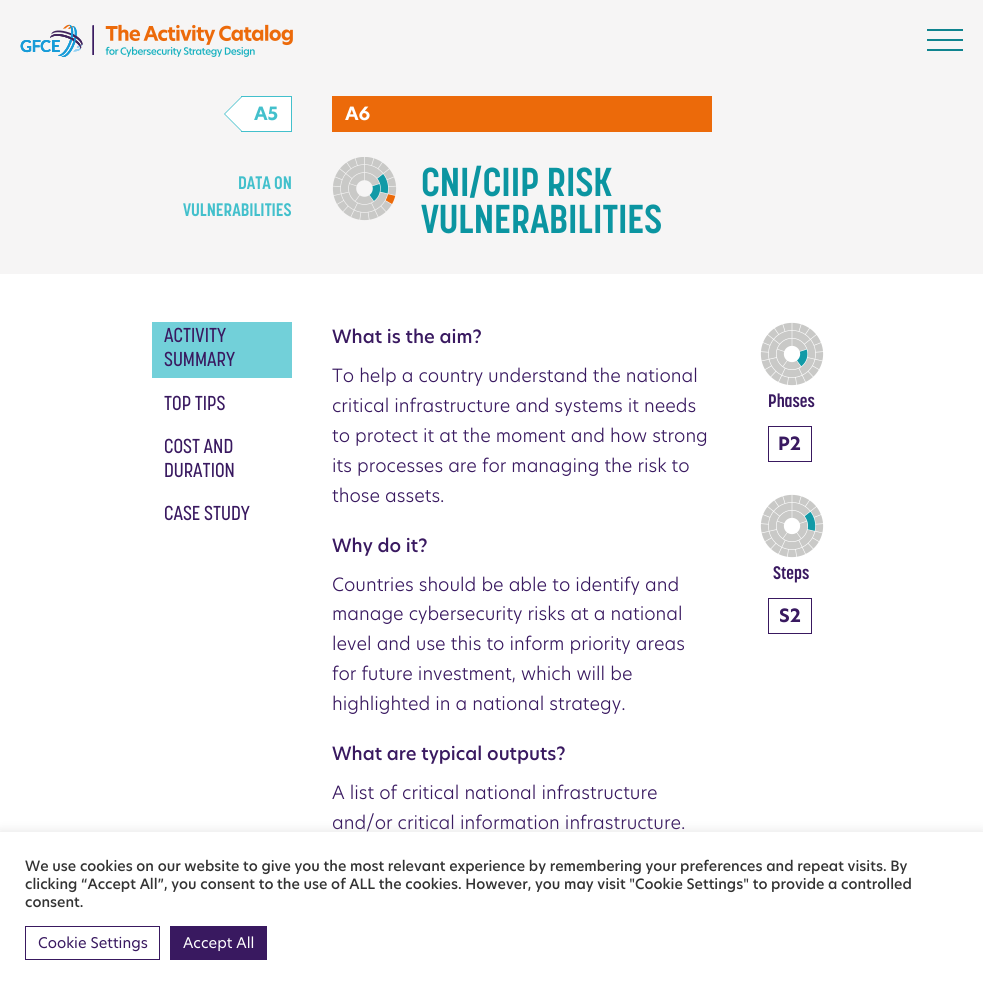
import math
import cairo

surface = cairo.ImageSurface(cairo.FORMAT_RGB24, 983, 990)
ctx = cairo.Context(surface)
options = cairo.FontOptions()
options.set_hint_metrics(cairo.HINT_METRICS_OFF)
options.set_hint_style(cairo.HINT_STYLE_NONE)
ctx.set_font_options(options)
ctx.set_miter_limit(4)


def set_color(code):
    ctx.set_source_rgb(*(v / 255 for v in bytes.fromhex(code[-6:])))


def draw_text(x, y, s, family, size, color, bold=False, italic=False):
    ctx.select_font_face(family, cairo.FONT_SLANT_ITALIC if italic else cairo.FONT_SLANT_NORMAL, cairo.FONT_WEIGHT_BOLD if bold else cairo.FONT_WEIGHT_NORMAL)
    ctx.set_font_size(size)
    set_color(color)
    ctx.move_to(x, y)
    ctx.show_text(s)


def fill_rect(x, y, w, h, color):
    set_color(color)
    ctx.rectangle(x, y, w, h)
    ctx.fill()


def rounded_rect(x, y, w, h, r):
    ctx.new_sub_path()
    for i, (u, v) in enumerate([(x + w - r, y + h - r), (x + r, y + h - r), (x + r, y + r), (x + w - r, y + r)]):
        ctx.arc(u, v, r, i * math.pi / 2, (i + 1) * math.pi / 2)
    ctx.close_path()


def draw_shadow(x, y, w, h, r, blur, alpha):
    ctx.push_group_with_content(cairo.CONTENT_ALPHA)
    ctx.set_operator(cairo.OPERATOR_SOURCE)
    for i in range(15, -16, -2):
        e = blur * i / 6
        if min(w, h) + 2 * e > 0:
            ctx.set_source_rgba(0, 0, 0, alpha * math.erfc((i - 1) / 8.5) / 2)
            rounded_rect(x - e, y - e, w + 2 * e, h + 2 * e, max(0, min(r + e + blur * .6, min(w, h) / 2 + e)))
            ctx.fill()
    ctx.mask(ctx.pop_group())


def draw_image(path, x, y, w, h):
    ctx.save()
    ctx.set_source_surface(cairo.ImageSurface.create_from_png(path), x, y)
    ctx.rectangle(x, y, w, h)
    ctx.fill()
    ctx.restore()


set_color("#ffffff")
ctx.paint()
fill_rect(0, 0, 983, 274, "#f6f5f5")
draw_image("assets/img1.png", 20, 24, 273, 34)
fill_rect(927, 29, 36, 2, "#0f848f")
fill_rect(927, 39, 36, 2, "#0f848f")
fill_rect(927, 49, 36, 2, "#0f848f")
set_color("#ffffff")
ctx.rectangle(241.5, 96.5, 50, 35)
ctx.fill_preserve()
set_color("#43c0cc")
ctx.set_line_width(1)
ctx.stroke()
ctx.new_path()
ctx.move_to(242, 96)
ctx.line_to(242, 132)
ctx.line_to(224, 114)
ctx.close_path()
ctx.fill()
set_color("#ffffff")
ctx.new_path()
ctx.move_to(242, 97)
ctx.line_to(242, 131)
ctx.line_to(225, 114)
ctx.close_path()
ctx.fill()
draw_text(254, 120, "A5", "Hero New", 18, "#43c0cc", bold=True)
draw_text(238, 189, "DATA ON", "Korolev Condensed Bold", 18, "#43c0cc", bold=True)
draw_text(183, 216, "VULNERABILITIES", "Korolev Condensed Bold", 18, "#43c0cc", bold=True)
fill_rect(332, 96, 380, 36, "#ec6a0a")
draw_text(345, 120, "A6", "Hero New", 18, "#ffffff", bold=True)
draw_image("assets/img2.png", 332, 157, 65, 64)
draw_text(421, 196, "CNI/CIIP RISK", "Korolev Condensed Bold", 40, "#0b95a1", bold=True)
draw_text(421, 233, "VULNERABILITIES", "Korolev Condensed Bold", 40, "#0b95a1", bold=True)
fill_rect(152, 322, 140, 56, "#72d0d9")
draw_text(164, 342, "ACTIVITY", "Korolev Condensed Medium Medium", 20, "#391960")
draw_text(164, 366, "SUMMARY", "Korolev Condensed Medium Medium", 20, "#391960")
draw_text(164, 410, "TOP TIPS", "Korolev Condensed Medium Medium", 20, "#391960")
draw_text(164, 453, "COST AND", "Korolev Condensed Medium Medium", 20, "#391960")
draw_text(164, 477, "DURATION", "Korolev Condensed Medium Medium", 20, "#391960")
draw_text(164, 520, "CASE STUDY", "Korolev Condensed Medium Medium", 20, "#391960")
draw_text(332, 343, "What is the aim?", "Hero New Medium", 18, "#391960")
draw_text(332, 382, "To help a country understand the national", "Hero New Light", 18, "#391960")
draw_text(332, 412, "critical infrastructure and systems it needs", "Hero New Light", 18, "#391960")
draw_text(332, 442, "to protect it at the moment and how strong", "Hero New Light", 18, "#391960")
draw_text(332, 472, "its processes are for managing the risk to", "Hero New Light", 18, "#391960")
draw_text(332, 502, "those assets.", "Hero New Light", 18, "#391960")
draw_text(332, 552, "Why do it?", "Hero New Medium", 18, "#391960")
draw_text(332, 591, "Countries should be able to identify and", "Hero New Light", 18, "#391960")
draw_text(332, 620, "manage cybersecurity risks at a national", "Hero New Light", 18, "#391960")
draw_text(332, 650, "level and use this to inform priority areas", "Hero New Light", 18, "#391960")
draw_text(332, 680, "for future investment, which will be", "Hero New Light", 18, "#391960")
draw_text(332, 710, "highlighted in a national strategy.", "Hero New Light", 18, "#391960")
draw_text(332, 760, "What are typical outputs?", "Hero New Medium", 18, "#391960")
draw_text(332, 799, "A list of critical national infrastructure", "Hero New Light", 18, "#391960")
draw_text(332, 829, "and/or critical information infrastructure.", "Hero New Light", 18, "#391960")
draw_image("assets/img3.png", 760, 322, 64, 64)
draw_text(768, 407, "Phases", "Korolev Condensed Bold", 18, "#391960", bold=True)
ctx.rectangle(768.5, 426.5, 43, 35)
ctx.stroke()
draw_text(778, 450, "P2", "Hero New", 18, "#391960", bold=True)
draw_image("assets/img4.png", 760, 494, 64, 64)
draw_text(773, 579, "Steps", "Korolev Condensed Bold", 18, "#391960", bold=True)
ctx.rectangle(768.5, 598.5, 43, 35)
ctx.stroke()
draw_text(779, 622, "S2", "Hero New", 18, "#391960", bold=True)
set_color("#acabab")
draw_shadow(0, 831, 983, 158, 0, 5, 0.3)
fill_rect(0, 832, 983, 158, "#ffffff")
draw_text(25, 871, "We use cookies on our website to give you the most relevant experience by remembering your preferences and repeat visits. By", "Hero New Medium", 14, "#333333")
draw_text(25, 889, "clicking “Accept All”, you consent to the use of ALL the cookies. However, you may visit \"Cookie Settings\" to provide a controlled", "Hero New Medium", 14, "#333333")
draw_text(25, 907, "consent.", "Hero New Medium", 14, "#333333")
ctx.rectangle(25.5, 926.5, 134, 33)
set_color("#391960")
ctx.stroke()
draw_text(38, 948, "Cookie Settings", "Hero New", 14.5, "#391960")
fill_rect(170, 926, 97, 34, "#391960")
draw_text(183, 948, "Accept All", "Hero New", 14.5, "#ffffff")
surface.write_to_png("output.png")
